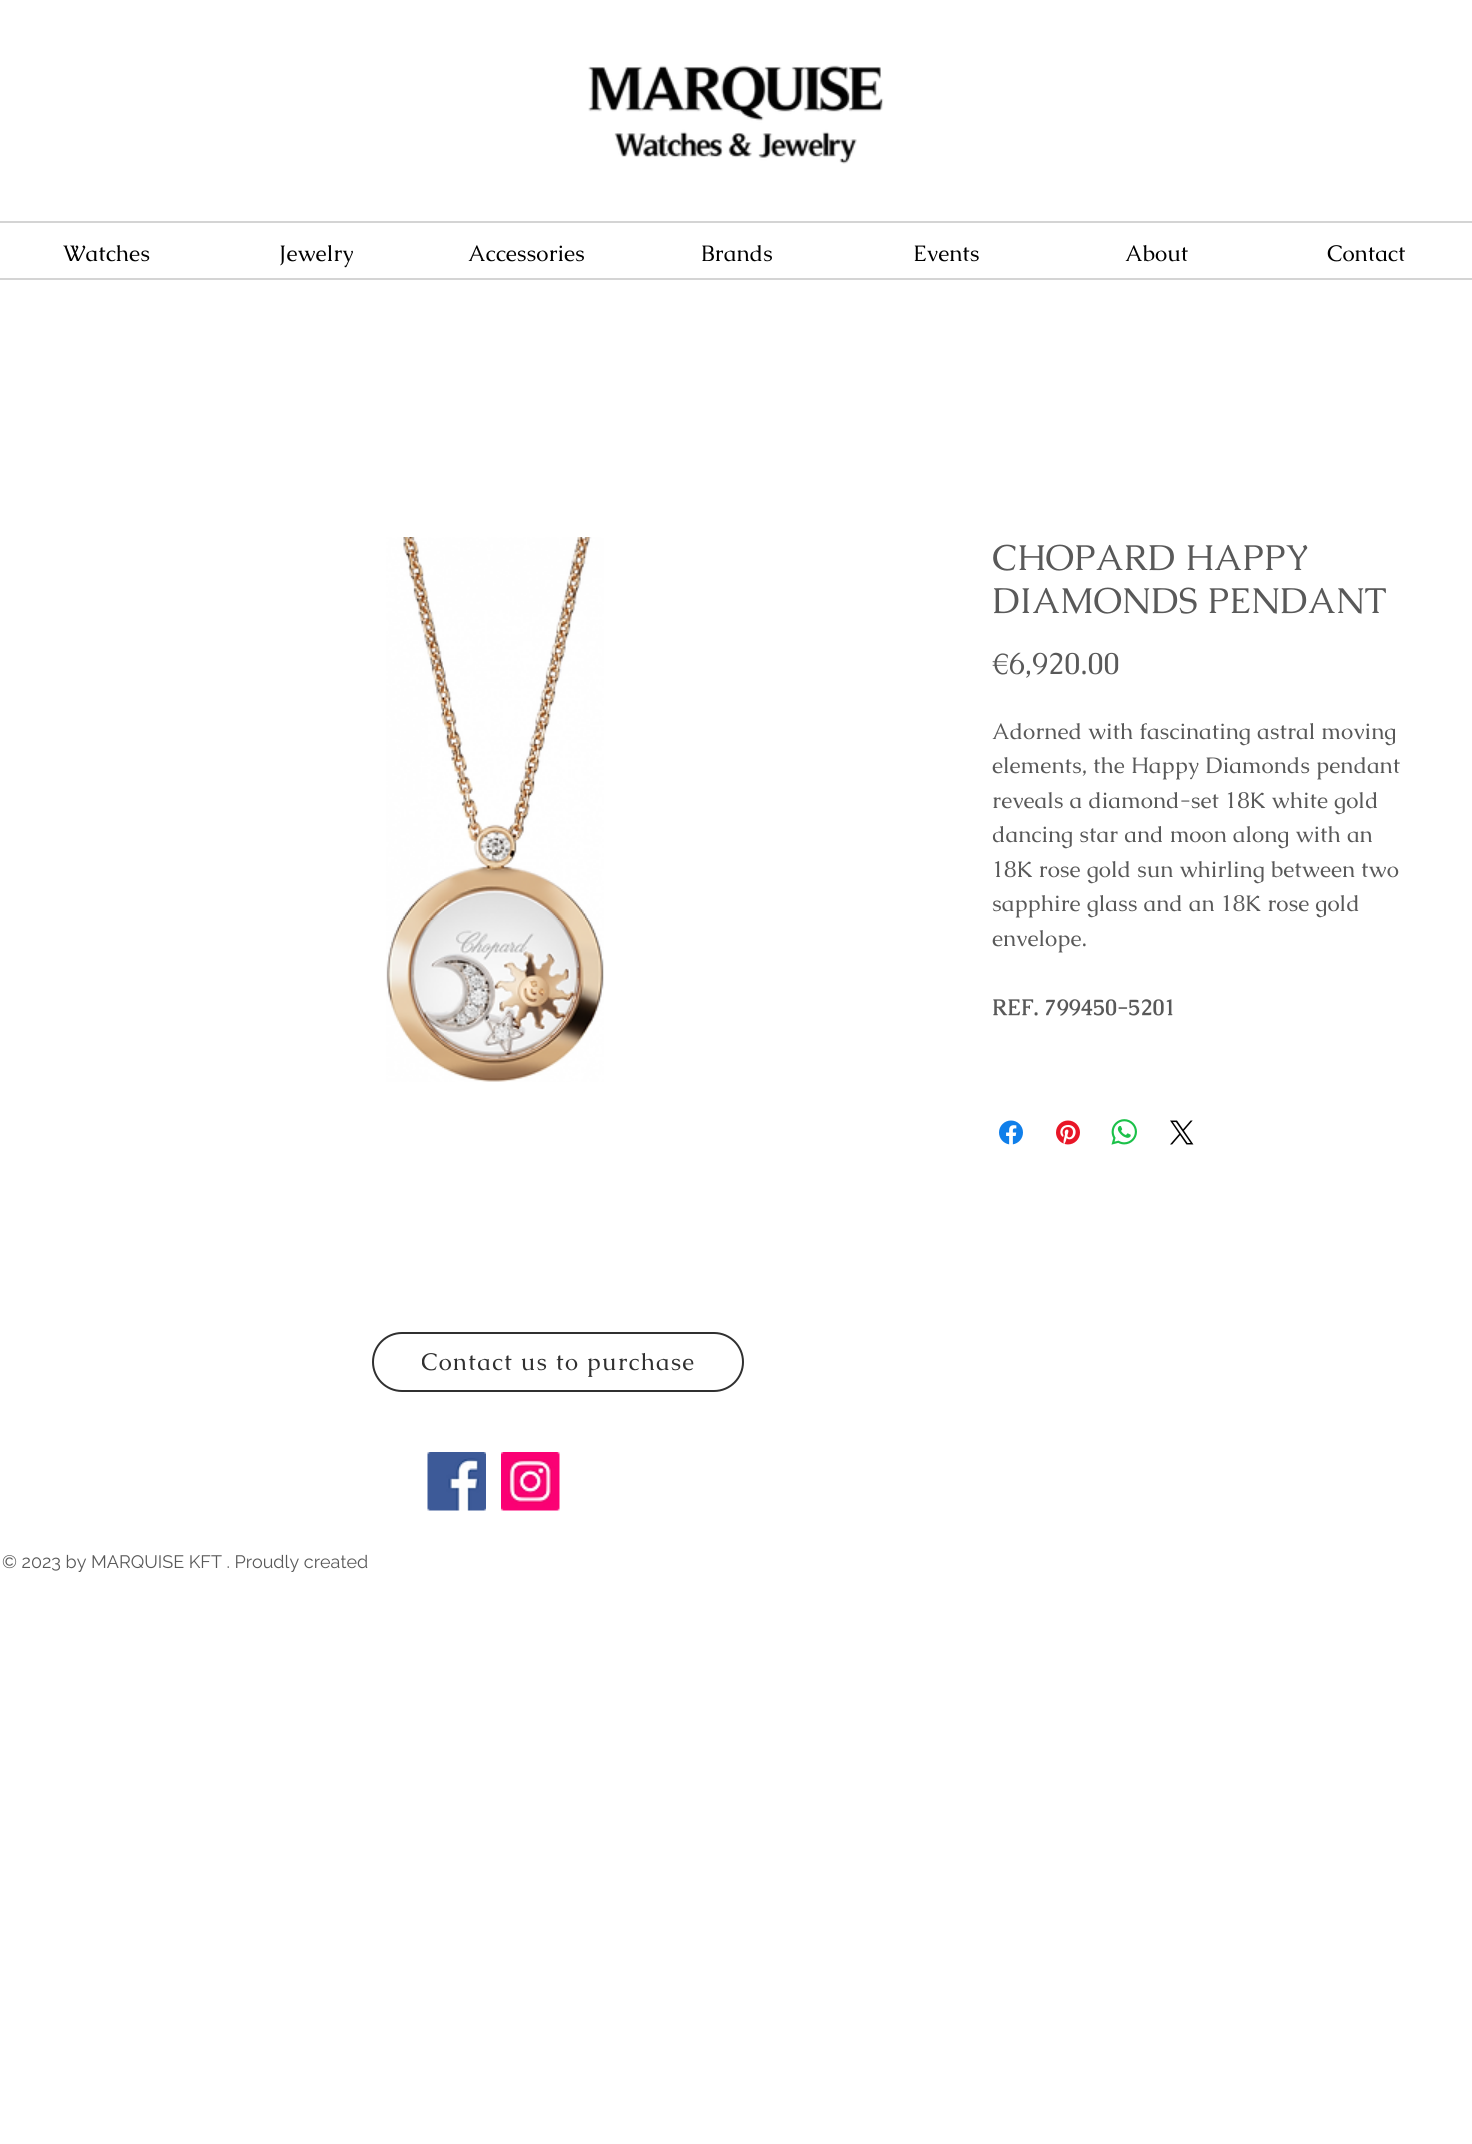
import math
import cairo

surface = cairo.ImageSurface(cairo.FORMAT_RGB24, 1472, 2144)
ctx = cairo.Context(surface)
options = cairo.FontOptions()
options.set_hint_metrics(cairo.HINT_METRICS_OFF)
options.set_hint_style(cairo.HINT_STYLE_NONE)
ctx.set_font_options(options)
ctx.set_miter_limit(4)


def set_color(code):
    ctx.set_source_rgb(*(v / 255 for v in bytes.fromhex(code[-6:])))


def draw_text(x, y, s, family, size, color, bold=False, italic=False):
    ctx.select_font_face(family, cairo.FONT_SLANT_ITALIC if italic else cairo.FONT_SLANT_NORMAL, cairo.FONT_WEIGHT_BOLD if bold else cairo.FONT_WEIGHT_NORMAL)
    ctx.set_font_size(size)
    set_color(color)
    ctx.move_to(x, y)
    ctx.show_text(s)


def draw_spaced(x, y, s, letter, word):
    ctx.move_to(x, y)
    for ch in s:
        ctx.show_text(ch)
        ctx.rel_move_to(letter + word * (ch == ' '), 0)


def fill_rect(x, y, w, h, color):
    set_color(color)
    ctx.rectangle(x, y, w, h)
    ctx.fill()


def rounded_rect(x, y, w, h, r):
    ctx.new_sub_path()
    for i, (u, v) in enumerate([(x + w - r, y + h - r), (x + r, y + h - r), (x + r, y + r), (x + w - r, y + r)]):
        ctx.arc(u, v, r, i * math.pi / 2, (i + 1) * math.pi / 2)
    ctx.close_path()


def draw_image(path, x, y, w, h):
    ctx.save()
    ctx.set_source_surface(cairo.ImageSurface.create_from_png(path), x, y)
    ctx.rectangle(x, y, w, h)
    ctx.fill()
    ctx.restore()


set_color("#ffffff")
ctx.paint()
draw_image("assets/img1.png", 588, 65, 296, 99)
fill_rect(0, 221, 1472, 2, "#d4d4d4")
draw_text(63, 261, "Watches", "Caudex", 22.5, "#000000")
draw_text(279, 261, "Jewelry", "Caudex", 22.5, "#000000")
draw_text(468, 261, "Accessories", "Caudex", 22.5, "#000000")
draw_text(701, 261, "Brands", "Caudex", 22.5, "#000000")
draw_text(913, 261, "Events", "Caudex", 22.5, "#000000")
draw_text(1125, 261, "About", "Caudex", 22.5, "#000000")
draw_text(1327, 261, "Contact", "Caudex", 22.5, "#000000")
fill_rect(0, 278, 1472, 2, "#d4d4d4")
draw_image("assets/img2.png", 386, 537, 218, 545)
draw_text(992, 570, "CHOPARD HAPPY", "Caudex", 36, "#595959")
draw_text(992, 613, "DIAMONDS PENDANT", "Caudex", 36, "#595959")
draw_text(992, 674, "€6,920.00", "Caudex", 30, "#595959")
draw_text(992, 739, "Adorned with fascinating astral moving", "Caudex", 22.5, "#595959")
draw_text(992, 773, "elements, the Happy Diamonds pendant", "Caudex", 22.5, "#595959")
draw_text(992, 808, "reveals a diamond-set 18K white gold", "Caudex", 22.5, "#595959")
draw_text(992, 842, "dancing star and moon along with an", "Caudex", 22.5, "#595959")
draw_text(992, 877, "18K rose gold sun whirling between two", "Caudex", 22.5, "#595959")
draw_text(992, 911, "sapphire glass and an 18K rose gold", "Caudex", 22.5, "#595959")
draw_text(992, 946, "envelope.", "Caudex", 22.5, "#595959")
draw_text(992, 1015, "REF. 799450-5201", "Caudex", 22.5, "#595959", bold=True)
draw_image("assets/img3.png", 999, 1120, 24, 25)
draw_image("assets/img4.png", 1056, 1120, 24, 25)
draw_image("assets/img5.png", 1111, 1119, 26, 26)
draw_image("assets/img6.png", 1170, 1120, 24, 25)
rounded_rect(373, 1333, 370, 58, 29)
set_color("#303030")
ctx.stroke()
ctx.save()
ctx.rectangle(422, 1347, 273, 32)
ctx.clip()
ctx.select_font_face("Caudex")
ctx.set_font_size(24)
draw_spaced(421, 1370, "Contact us to purchase", 1.2, 0)
ctx.restore()
draw_image("assets/img7.png", 427, 1452, 59, 59)
draw_image("assets/img8.png", 501, 1452, 59, 59)
draw_text(2, 1568, "© 2023 by MARQUISE KFT . Proudly created", "Raleway", 18, "#595959")
surface.write_to_png("output.png")
